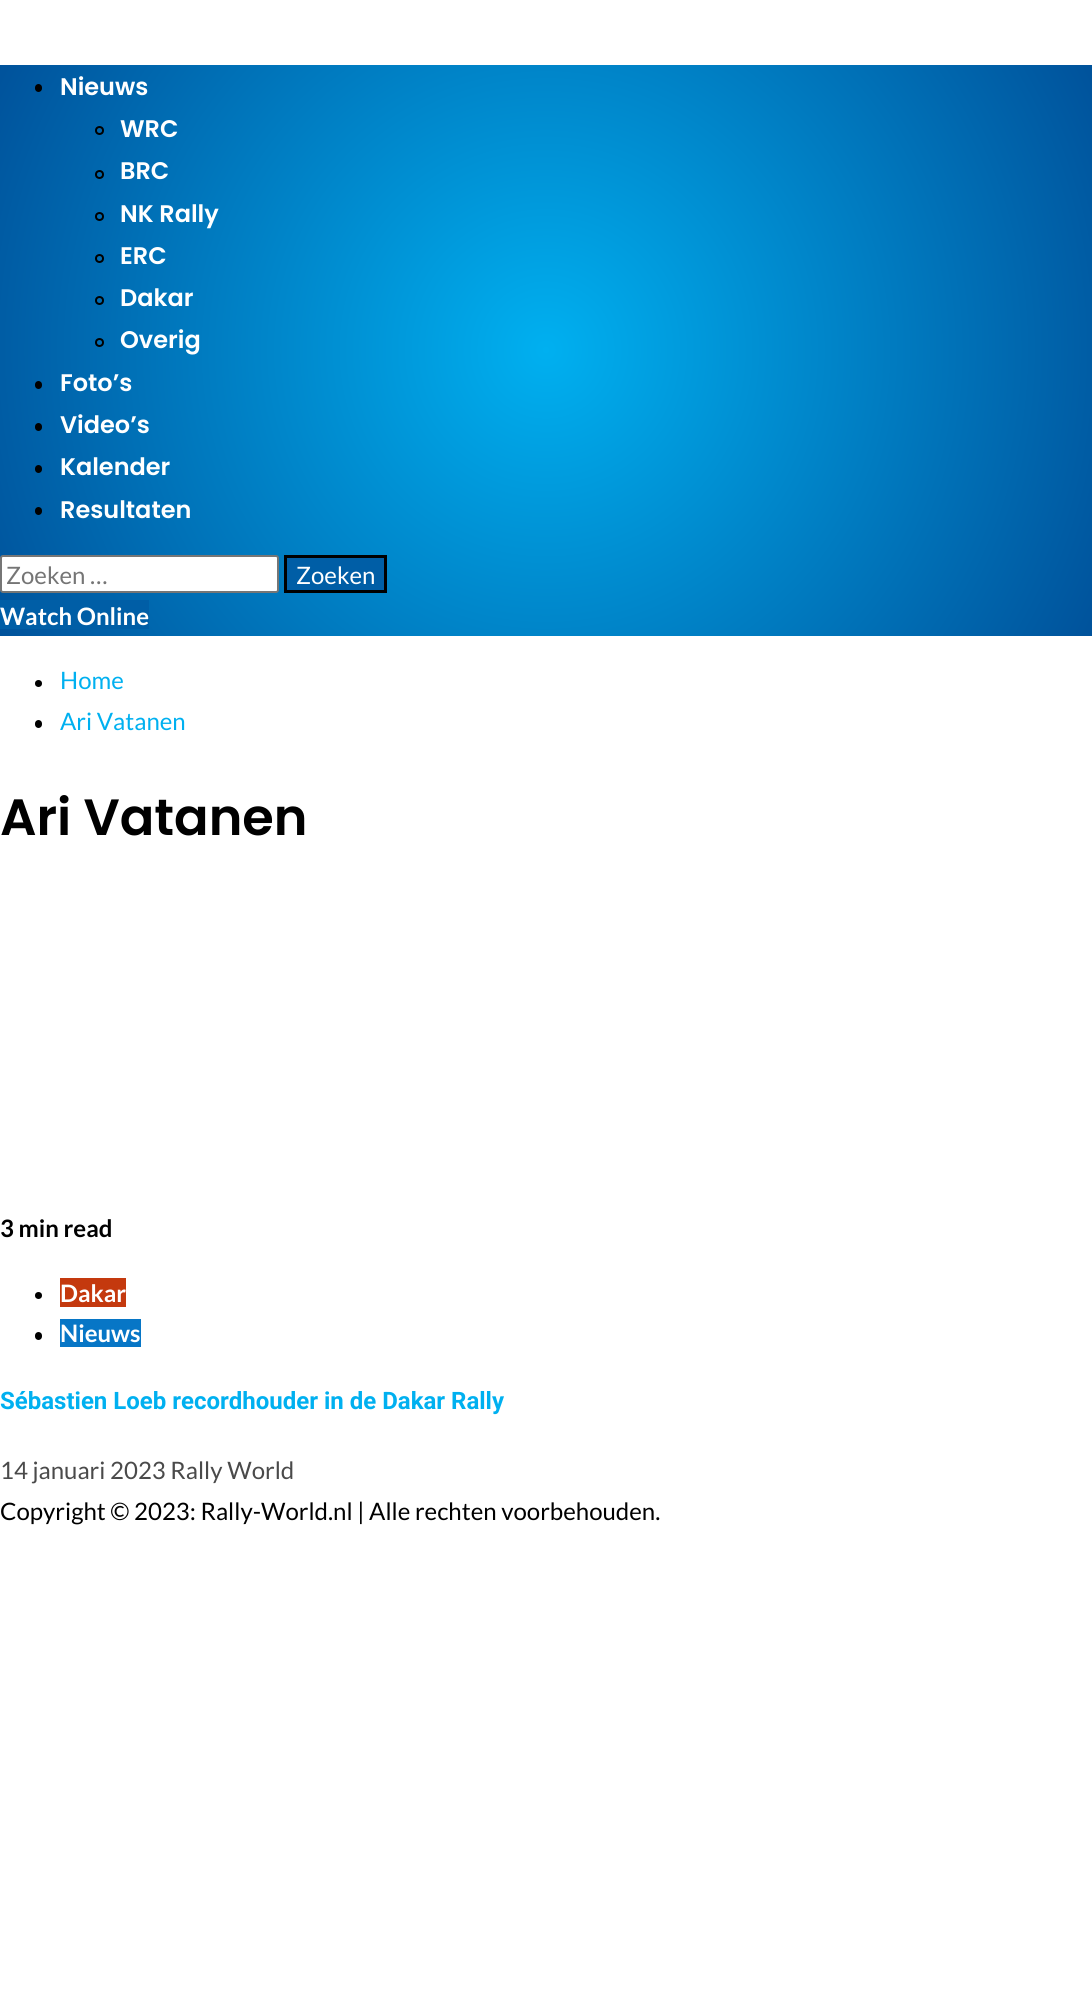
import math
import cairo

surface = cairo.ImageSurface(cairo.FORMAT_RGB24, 1092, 2001)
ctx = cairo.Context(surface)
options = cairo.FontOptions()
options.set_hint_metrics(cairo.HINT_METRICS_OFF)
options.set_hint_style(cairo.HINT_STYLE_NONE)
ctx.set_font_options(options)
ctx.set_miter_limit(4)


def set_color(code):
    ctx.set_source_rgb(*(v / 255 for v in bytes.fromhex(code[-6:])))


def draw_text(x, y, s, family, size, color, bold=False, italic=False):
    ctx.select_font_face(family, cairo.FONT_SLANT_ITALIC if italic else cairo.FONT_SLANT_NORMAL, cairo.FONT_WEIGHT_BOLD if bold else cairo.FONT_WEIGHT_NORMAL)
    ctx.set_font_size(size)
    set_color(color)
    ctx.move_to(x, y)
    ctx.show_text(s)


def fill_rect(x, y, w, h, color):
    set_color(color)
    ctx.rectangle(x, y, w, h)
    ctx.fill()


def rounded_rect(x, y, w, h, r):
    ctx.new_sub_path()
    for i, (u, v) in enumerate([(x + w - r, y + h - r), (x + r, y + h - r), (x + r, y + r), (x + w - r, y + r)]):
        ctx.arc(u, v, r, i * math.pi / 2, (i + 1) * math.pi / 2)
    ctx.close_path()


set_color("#ffffff")
ctx.paint()
gradient = cairo.RadialGradient(546, 350, 0, 546, 350, 616)
gradient.add_color_stop_rgba(0, 0, 0.69, 0.941, 1)
gradient.add_color_stop_rgba(1, 0, 0.322, 0.608, 1)
ctx.set_source(gradient)
ctx.rectangle(0, 65, 1092, 571)
ctx.fill()
set_color("#000000")
rounded_rect(35, 84, 7, 8, 3.5)
ctx.fill()
draw_text(60, 95, "Nieuws", "Poppins SemiBold", 24, "#ffffff")
ctx.new_path()
ctx.arc(99.5, 130.5, 3.5, 0, 2 * math.pi)
set_color("#000000")
ctx.stroke()
draw_text(120, 137, "WRC", "Poppins SemiBold", 24, "#ffffff")
ctx.new_path()
ctx.arc(99.5, 174.5, 3.5, 0, 2 * math.pi)
set_color("#000000")
ctx.stroke()
draw_text(120, 179, "BRC", "Poppins SemiBold", 24, "#ffffff")
ctx.new_path()
ctx.arc(99.5, 216.5, 3.5, 0, 2 * math.pi)
set_color("#000000")
ctx.stroke()
draw_text(120, 222, "NK Rally", "Poppins SemiBold", 24, "#ffffff")
ctx.new_path()
ctx.arc(99.5, 258.5, 3.5, 0, 2 * math.pi)
set_color("#000000")
ctx.stroke()
draw_text(120, 264, "ERC", "Poppins SemiBold", 24, "#ffffff")
ctx.new_path()
ctx.arc(99.5, 300.5, 3.5, 0, 2 * math.pi)
set_color("#000000")
ctx.stroke()
draw_text(120, 306, "Dakar", "Poppins SemiBold", 24, "#ffffff")
ctx.new_path()
ctx.arc(99.5, 342.5, 3.5, 0, 2 * math.pi)
set_color("#000000")
ctx.stroke()
draw_text(120, 348, "Overig", "Poppins SemiBold", 24, "#ffffff")
set_color("#000000")
rounded_rect(35, 381, 7, 8, 3.5)
ctx.fill()
draw_text(60, 391, "Foto’s", "Poppins SemiBold", 24, "#ffffff")
set_color("#000000")
rounded_rect(35, 423, 7, 8, 3.5)
ctx.fill()
draw_text(60, 433, "Video’s", "Poppins SemiBold", 24, "#ffffff")
set_color("#000000")
rounded_rect(35, 465, 7, 8, 3.5)
ctx.fill()
draw_text(60, 475, "Kalender", "Poppins SemiBold", 24, "#ffffff")
set_color("#000000")
rounded_rect(35, 507, 7, 8, 3.5)
ctx.fill()
draw_text(60, 518, "Resultaten", "Poppins SemiBold", 24, "#ffffff")
rounded_rect(1, 556, 277, 36, 2)
ctx.fill_preserve()
set_color("#767676")
ctx.stroke()
draw_text(6, 584, "Zoeken …", "Lato", 24, "#757575")
set_color("#005ea6")
ctx.rectangle(285.5, 556.5, 100, 35)
ctx.fill_preserve()
set_color("#000000")
ctx.set_line_width(3)
ctx.stroke()
draw_text(296, 584, "Zoeken", "Lato", 24, "#ffffff")
fill_rect(0, 600, 149, 29, "#005ea6")
draw_text(0, 625, "Watch Online", "Lato", 24, "#ffffff", bold=True)
set_color("#000000")
ctx.new_path()
ctx.arc(38.5, 683.5, 3.5, 0, 2 * math.pi)
ctx.fill()
draw_text(60, 689, "Home", "Lato", 24, "#00b0f0")
set_color("#000000")
rounded_rect(35, 720, 7, 8, 3.5)
ctx.fill()
draw_text(60, 730, "Ari Vatanen", "Lato", 24, "#00b0f0")
draw_text(0, 835, "Ari Vatanen", "Poppins SemiBold", 51, "#000000")
draw_text(0, 1237, "3 min read", "Lato", 24, "#000000", bold=True)
ctx.new_path()
ctx.arc(38.5, 1295.5, 3.5, 0, 2 * math.pi)
ctx.fill()
fill_rect(60, 1278, 66, 29, "#c4390e")
draw_text(60, 1302, "Dakar", "Lato", 24, "#ffffff", bold=True)
set_color("#000000")
rounded_rect(35, 1332, 7, 8, 3.5)
ctx.fill()
fill_rect(60, 1319, 81, 28, "#0776c6")
draw_text(60, 1342, "Nieuws", "Lato", 24, "#ffffff", bold=True)
draw_text(0, 1409, "Sébastien Loeb recordhouder in de Dakar Rally", "Roboto", 24, "#00b0f0", bold=True)
draw_text(0, 1479, "14 januari 2023 Rally World", "Lato", 24, "#4a4a4a")
draw_text(0, 1520, "Copyright © 2023: Rally-World.nl | Alle rechten voorbehouden.", "Lato", 24, "#000000")
surface.write_to_png("output.png")
